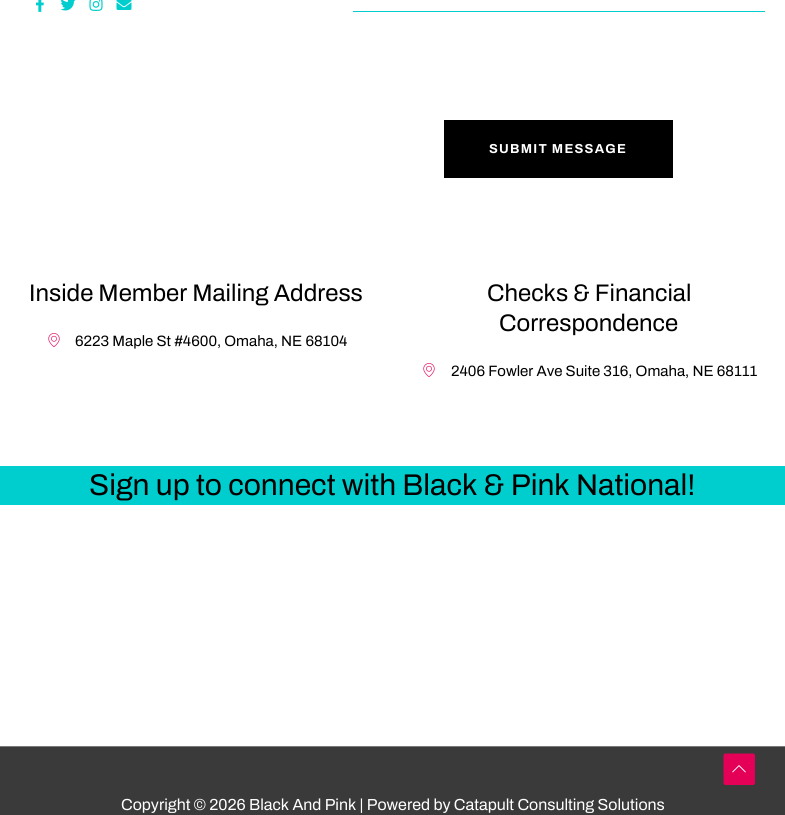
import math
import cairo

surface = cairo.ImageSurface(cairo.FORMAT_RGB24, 785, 815)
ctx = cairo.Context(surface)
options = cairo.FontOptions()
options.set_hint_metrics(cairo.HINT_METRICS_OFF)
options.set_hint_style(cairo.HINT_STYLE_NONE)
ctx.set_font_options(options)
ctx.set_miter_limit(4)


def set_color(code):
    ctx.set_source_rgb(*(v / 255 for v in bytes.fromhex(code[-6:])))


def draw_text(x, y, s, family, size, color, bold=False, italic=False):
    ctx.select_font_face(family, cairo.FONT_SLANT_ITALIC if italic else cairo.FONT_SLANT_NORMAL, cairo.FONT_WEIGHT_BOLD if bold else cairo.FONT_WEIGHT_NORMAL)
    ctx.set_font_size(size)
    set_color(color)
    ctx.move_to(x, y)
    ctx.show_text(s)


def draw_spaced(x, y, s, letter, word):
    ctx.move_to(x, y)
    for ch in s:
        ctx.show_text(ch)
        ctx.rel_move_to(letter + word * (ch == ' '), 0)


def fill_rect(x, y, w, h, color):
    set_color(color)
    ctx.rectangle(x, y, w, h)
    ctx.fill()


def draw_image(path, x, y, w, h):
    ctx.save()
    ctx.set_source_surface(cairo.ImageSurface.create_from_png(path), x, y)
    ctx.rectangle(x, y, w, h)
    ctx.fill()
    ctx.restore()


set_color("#ffffff")
ctx.paint()
draw_image("assets/img1.png", 36, 0, 8, 12)
draw_image("assets/img2.png", 60, 0, 16, 11)
draw_image("assets/img3.png", 89, 0, 14, 11)
draw_image("assets/img4.png", 116, 0, 16, 10)
fill_rect(353, 11, 412, 1, "#00cdcd")
fill_rect(444, 120, 229, 58, "#000000")
ctx.select_font_face("Archivo", cairo.FONT_SLANT_NORMAL, cairo.FONT_WEIGHT_BOLD)
ctx.set_font_size(13)
set_color("#ffffff")
draw_spaced(489, 153, "SUBMIT MESSAGE", 1.25, 0)
draw_text(29, 301, "Inside Member Mailing Address", "Archivo", 24, "#000000")
draw_image("assets/img5.png", 48, 333, 12, 14)
draw_text(75, 346, "6223 Maple St #4600, Omaha, NE 68104", "Archivo", 15, "#000000")
draw_text(487, 301, "Checks & Financial", "Archivo", 24, "#000000")
draw_text(499, 331, "Correspondence", "Archivo", 24, "#000000")
draw_image("assets/img5.png", 423, 363, 12, 14)
draw_text(451, 376, "2406 Fowler Ave Suite 316, Omaha, NE 68111", "Archivo", 15, "#000000")
fill_rect(0, 466, 785, 39, "#00cdcd")
draw_text(89, 495, "Sign up to connect with Black & Pink National!", "Archivo", 30, "#000000")
fill_rect(0, 746, 785, 1, "#7a7a7a")
fill_rect(0, 747, 785, 68, "#3a3a3a")
draw_text(121, 810, "Copyright © 2026 Black And Pink | Powered by Catapult Consulting Solutions", "Archivo", 16, "#ffffff")
set_color("#e50057")
ctx.new_path()
ctx.move_to(753, 785)
ctx.line_to(725.5, 785)
ctx.curve_to(724.5, 785, 723.5, 784, 723.5, 783)
ctx.line_to(723.5, 755.5)
ctx.curve_to(723.5, 754.5, 724.5, 753.5, 725.5, 753.5)
ctx.line_to(753, 753.5)
ctx.curve_to(754, 753.5, 755, 754.5, 755, 755.5)
ctx.line_to(755, 783)
ctx.curve_to(755, 784, 754, 785, 753, 785)
ctx.close_path()
ctx.fill()
draw_image("assets/img6.png", 732, 765, 14, 8)
surface.write_to_png("output.png")
